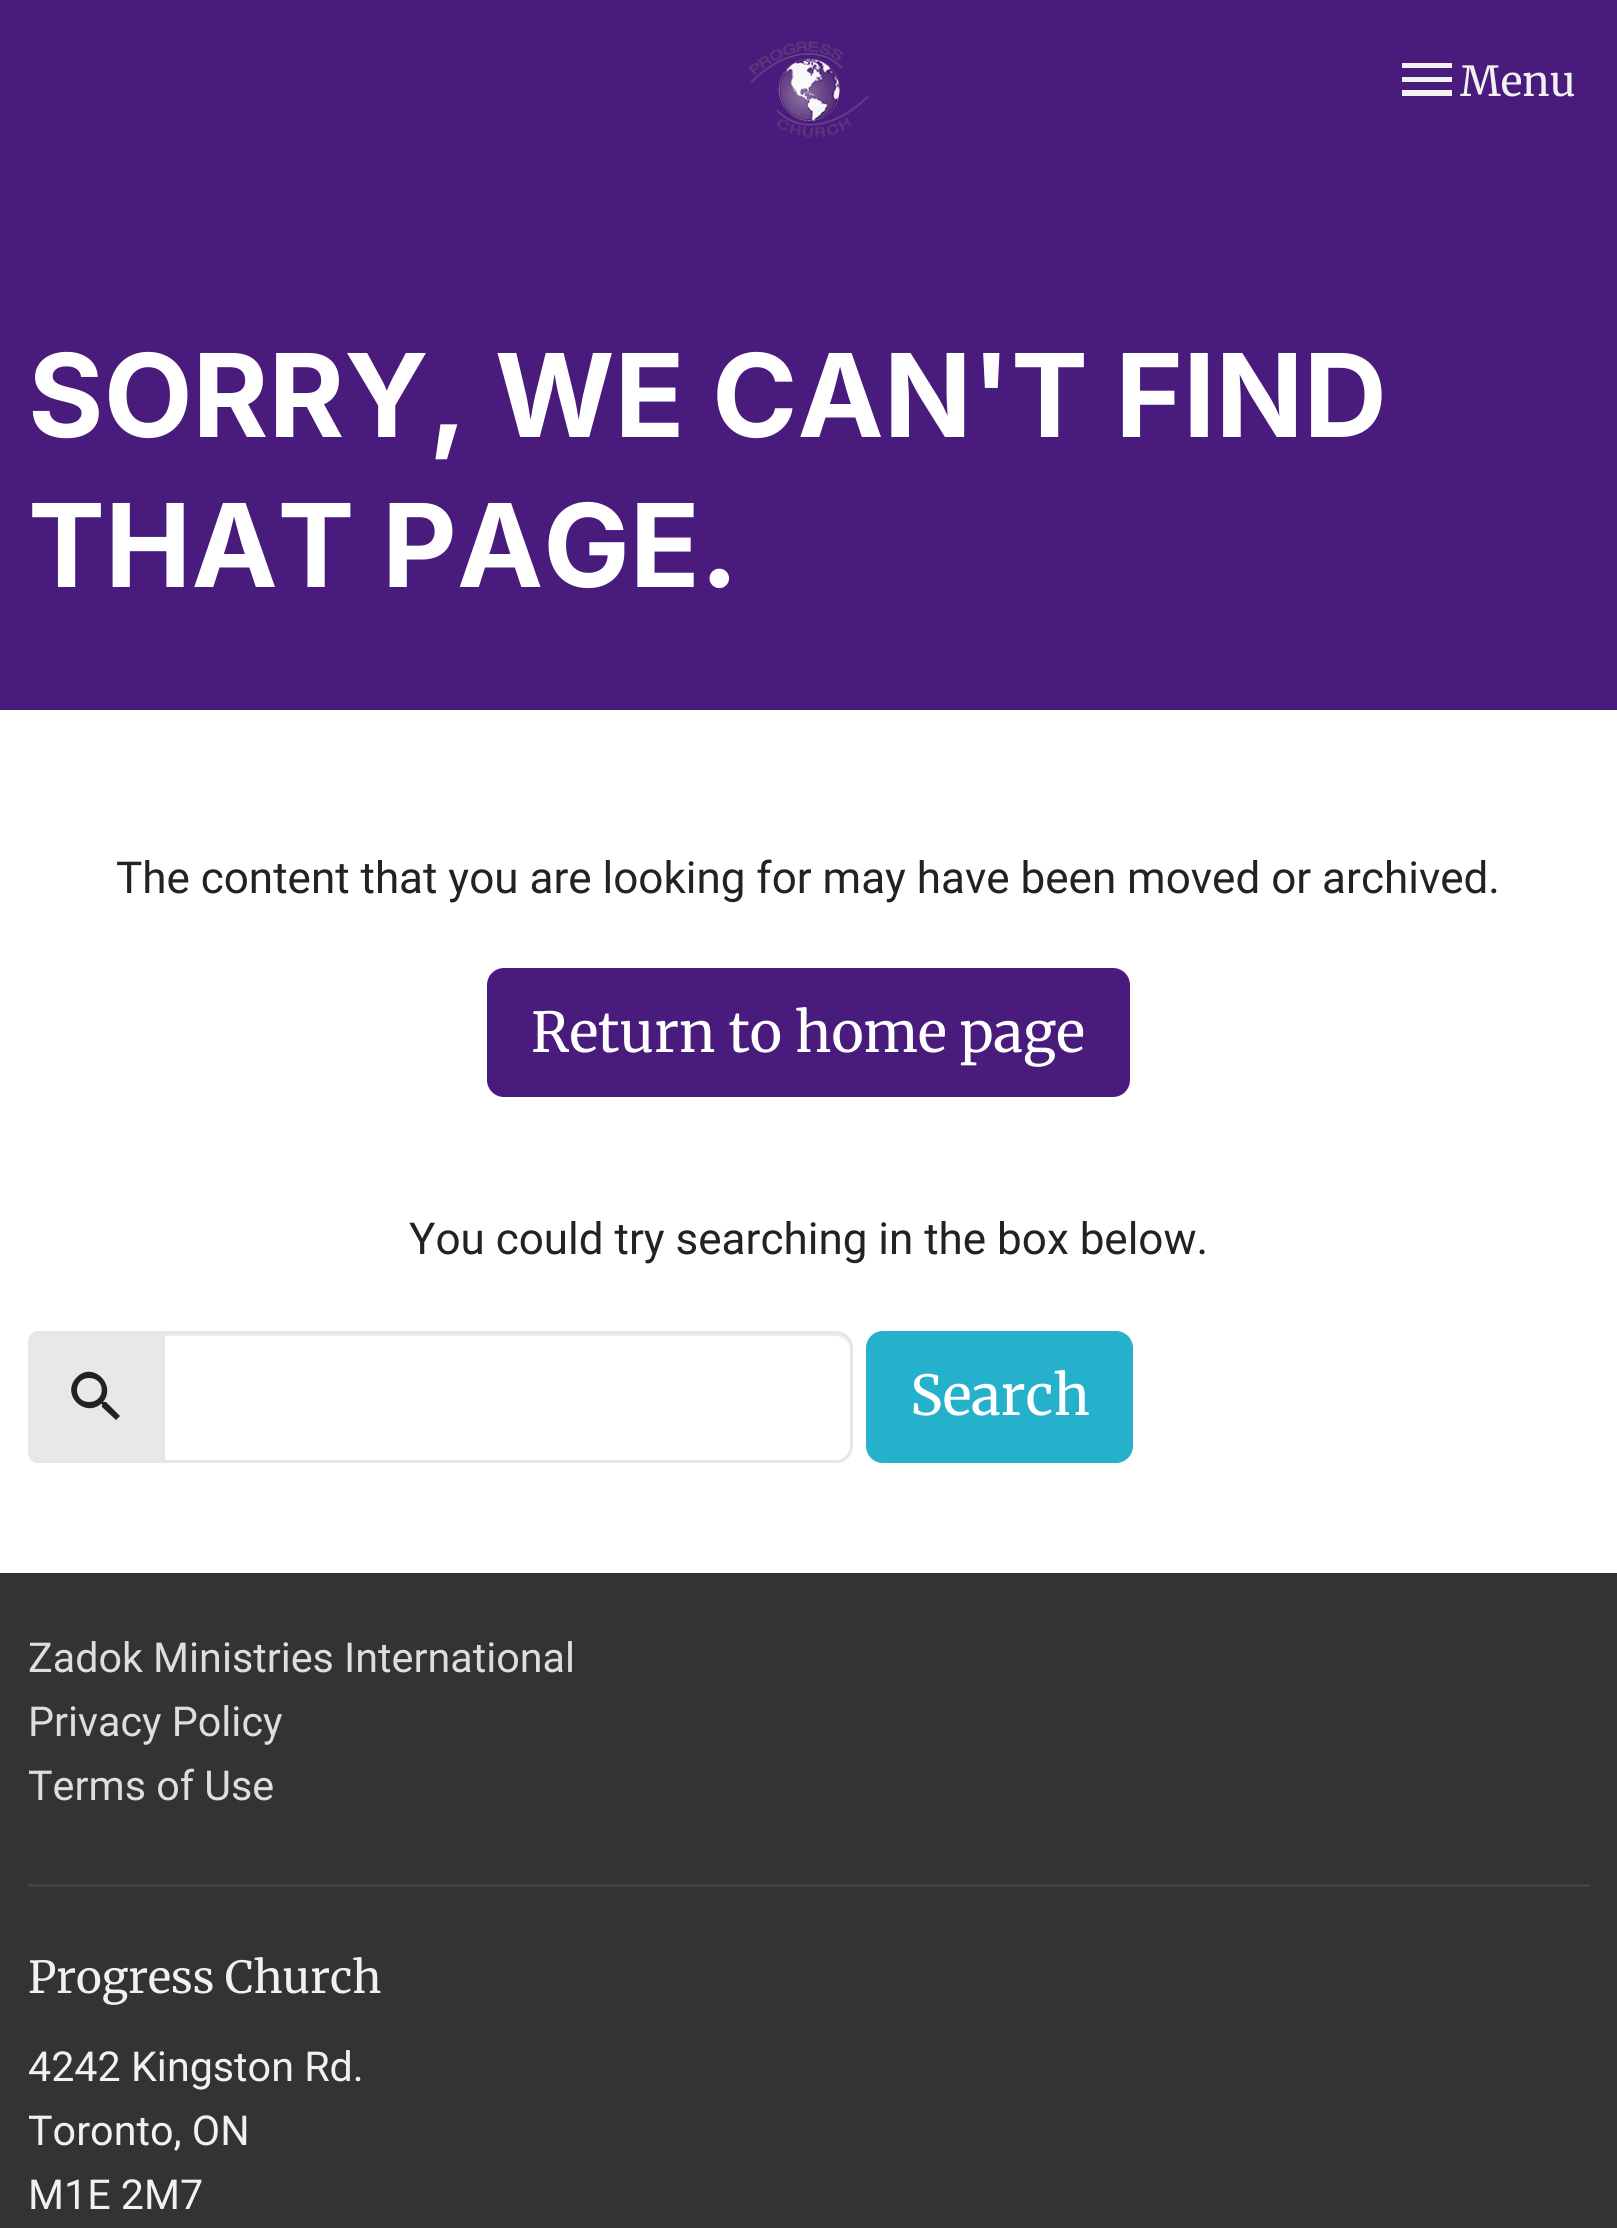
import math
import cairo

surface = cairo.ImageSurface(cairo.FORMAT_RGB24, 1617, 2228)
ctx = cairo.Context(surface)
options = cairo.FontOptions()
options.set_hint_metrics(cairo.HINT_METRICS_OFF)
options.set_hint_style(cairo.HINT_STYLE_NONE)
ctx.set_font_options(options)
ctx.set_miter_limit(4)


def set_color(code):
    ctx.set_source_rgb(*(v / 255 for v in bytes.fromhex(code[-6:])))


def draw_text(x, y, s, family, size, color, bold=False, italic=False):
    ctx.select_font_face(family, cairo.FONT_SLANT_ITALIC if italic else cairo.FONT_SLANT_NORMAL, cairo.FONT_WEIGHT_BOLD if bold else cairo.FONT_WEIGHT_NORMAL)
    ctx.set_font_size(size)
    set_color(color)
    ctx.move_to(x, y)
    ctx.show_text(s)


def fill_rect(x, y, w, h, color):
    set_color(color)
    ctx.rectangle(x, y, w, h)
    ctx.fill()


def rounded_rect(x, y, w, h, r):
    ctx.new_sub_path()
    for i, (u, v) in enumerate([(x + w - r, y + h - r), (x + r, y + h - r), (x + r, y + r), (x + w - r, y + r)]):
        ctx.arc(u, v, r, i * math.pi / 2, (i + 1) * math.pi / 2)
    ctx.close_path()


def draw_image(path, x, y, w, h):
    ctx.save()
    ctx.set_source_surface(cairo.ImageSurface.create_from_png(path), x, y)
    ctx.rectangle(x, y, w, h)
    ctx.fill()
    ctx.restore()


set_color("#ffffff")
ctx.paint()
fill_rect(0, 0, 1617, 710, "#491b7d")
draw_image("assets/img1.png", 748, 41, 121, 97)
set_color("#f1f1f1")
ctx.new_path()
ctx.move_to(1402, 96)
ctx.line_to(1452, 96)
ctx.line_to(1452, 90)
ctx.line_to(1402, 90)
ctx.close_path()
ctx.move_to(1402, 82)
ctx.line_to(1452, 82)
ctx.line_to(1452, 77)
ctx.line_to(1402, 77)
ctx.close_path()
ctx.move_to(1402, 63)
ctx.line_to(1402, 68)
ctx.line_to(1452, 68)
ctx.line_to(1452, 63)
ctx.close_path()
ctx.fill()
draw_text(1460, 96, "Menu", "Merriweather", 41.25, "#f1f1f1")
draw_text(28, 437, "SORRY, WE CAN'T FIND", "Inter", 115.5, "#ffffff", bold=True)
draw_text(28, 587, "THAT PAGE.", "Inter", 115.5, "#ffffff", bold=True)
draw_text(116, 893, "The content that you are looking for may have been moved or archived.", "Roboto", 44, "#222222")
set_color("#491b7d")
rounded_rect(487, 968, 643, 129, 17)
ctx.fill()
draw_text(531, 1052, "Return to home page", "Merriweather", 55, "#ffffff")
draw_text(409, 1254, "You could try searching in the box below.", "Roboto", 44, "#222222")
set_color("#e8e8e8")
ctx.new_path()
ctx.move_to(39, 1331)
ctx.line_to(162, 1331)
ctx.line_to(162, 1463)
ctx.line_to(39, 1463)
ctx.curve_to(33, 1463, 28, 1458, 28, 1452)
ctx.line_to(28, 1342)
ctx.curve_to(28, 1336, 33, 1331, 39, 1331)
ctx.close_path()
ctx.fill()
set_color("#e6e6e6")
ctx.set_fill_rule(cairo.FILL_RULE_EVEN_ODD)
ctx.new_path()
ctx.move_to(38, 1331)
ctx.line_to(162, 1331)
ctx.line_to(162, 1463)
ctx.line_to(38, 1463)
ctx.curve_to(32, 1463, 28, 1458, 28, 1452)
ctx.line_to(28, 1342)
ctx.curve_to(28, 1336, 32, 1331, 38, 1331)
ctx.close_path()
ctx.move_to(38, 1334)
ctx.line_to(162, 1334)
ctx.line_to(162, 1460)
ctx.line_to(38, 1460)
ctx.curve_to(34, 1460, 30, 1457, 30, 1452)
ctx.line_to(30, 1342)
ctx.curve_to(30, 1337, 34, 1334, 38, 1334)
ctx.close_path()
ctx.fill()
set_color("#222222")
ctx.set_fill_rule(cairo.FILL_RULE_WINDING)
ctx.new_path()
ctx.move_to(106, 1402)
ctx.line_to(104, 1402)
ctx.line_to(103, 1402)
ctx.curve_to(117, 1385, 93, 1361, 77, 1377)
ctx.curve_to(60, 1394, 84, 1418, 101, 1404)
ctx.line_to(102, 1404)
ctx.line_to(102, 1407)
ctx.line_to(116, 1420)
ctx.line_to(120, 1416)
ctx.close_path()
ctx.move_to(89, 1402)
ctx.curve_to(73, 1402, 73, 1378, 89, 1378)
ctx.curve_to(106, 1378, 106, 1402, 89, 1402)
ctx.close_path()
ctx.fill()
set_color("#ececec")
ctx.new_path()
ctx.move_to(165, 1336)
ctx.line_to(836, 1336)
ctx.curve_to(844, 1336, 850, 1343, 850, 1350)
ctx.curve_to(850, 1342, 845, 1334, 836, 1334)
ctx.line_to(165, 1334)
ctx.close_path()
ctx.fill()
ctx.new_path()
ctx.move_to(163.5, 1332.5)
ctx.line_to(836, 1332.5)
ctx.curve_to(844.5, 1332.5, 851.5, 1339.5, 851.5, 1348)
ctx.line_to(851.5, 1446)
ctx.curve_to(851.5, 1454.5, 844.5, 1461.5, 836, 1461.5)
ctx.line_to(163.5, 1461.5)
ctx.close_path()
set_color("#e6e6e6")
ctx.set_line_width(3)
ctx.stroke()
set_color("#25b0cc")
rounded_rect(866, 1331, 267, 132, 17)
ctx.fill()
draw_text(910, 1415, "Search", "Merriweather", 55, "#ffffff")
fill_rect(0, 1573, 1617, 655, "#333333")
draw_text(28, 1672, "Zadok Ministries International", "Roboto", 41.25, "#dedede")
draw_text(28, 1736, "Privacy Policy", "Roboto", 41.25, "#dedede")
draw_text(28, 1800, "Terms of Use", "Roboto", 41.25, "#dedede")
fill_rect(28, 1884, 1562, 3, "#424242")
draw_text(28, 1993, "Progress Church", "Merriweather", 44, "#f1f1f1")
draw_text(28, 2081, "4242 Kingston Rd.", "Roboto", 41.25, "#f1f1f1")
draw_text(28, 2145, "Toronto, ON", "Roboto", 41.25, "#f1f1f1")
draw_text(28, 2209, "M1E 2M7", "Roboto", 41.25, "#f1f1f1")
surface.write_to_png("output.png")
